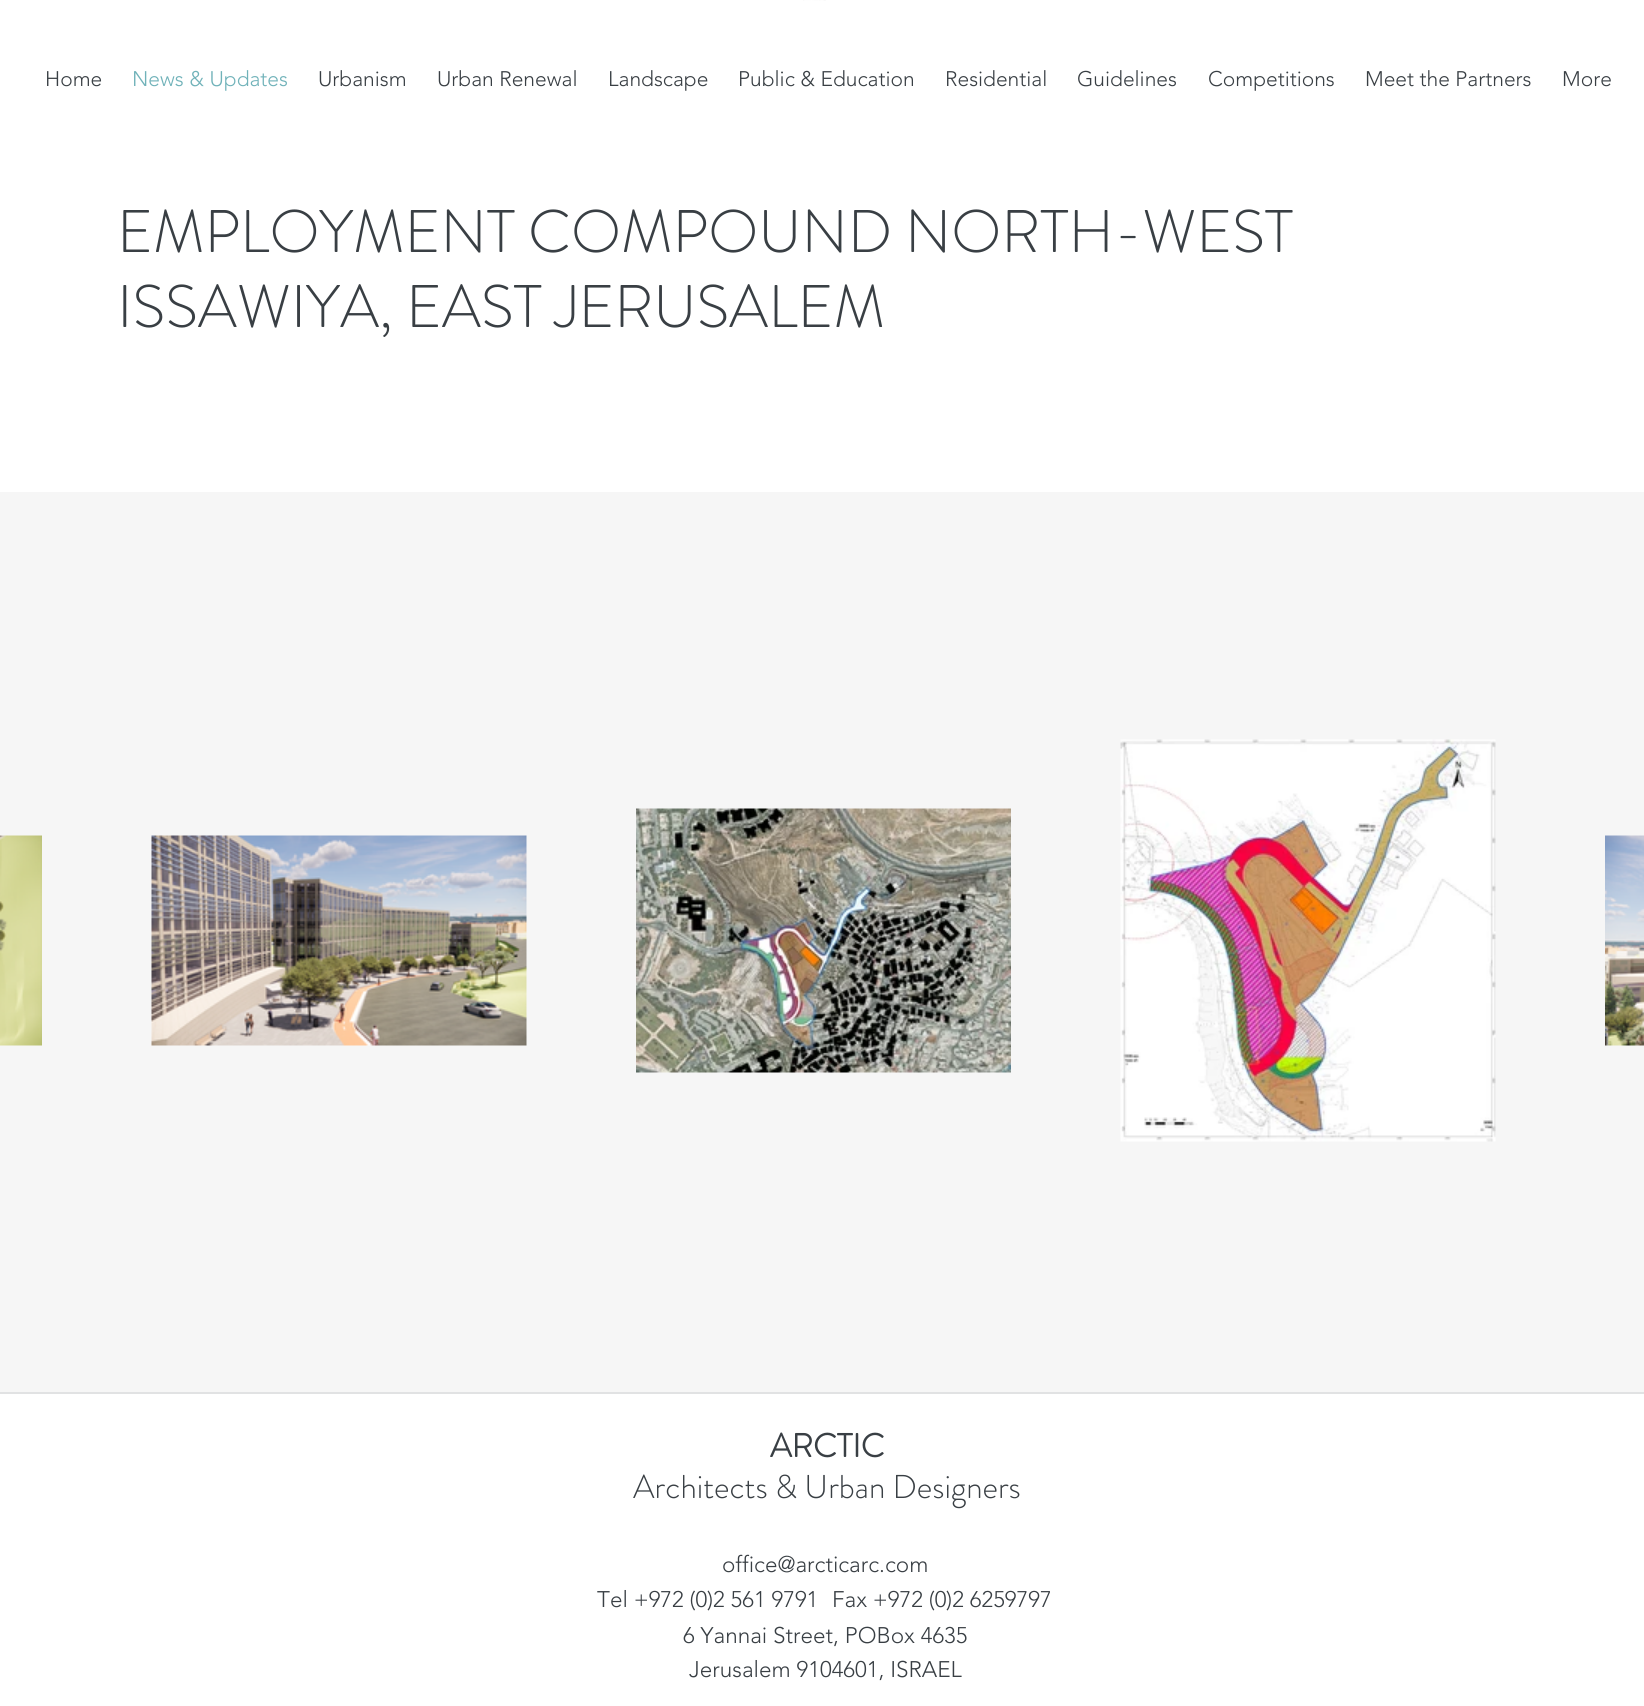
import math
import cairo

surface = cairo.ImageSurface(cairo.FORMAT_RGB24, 1644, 1706)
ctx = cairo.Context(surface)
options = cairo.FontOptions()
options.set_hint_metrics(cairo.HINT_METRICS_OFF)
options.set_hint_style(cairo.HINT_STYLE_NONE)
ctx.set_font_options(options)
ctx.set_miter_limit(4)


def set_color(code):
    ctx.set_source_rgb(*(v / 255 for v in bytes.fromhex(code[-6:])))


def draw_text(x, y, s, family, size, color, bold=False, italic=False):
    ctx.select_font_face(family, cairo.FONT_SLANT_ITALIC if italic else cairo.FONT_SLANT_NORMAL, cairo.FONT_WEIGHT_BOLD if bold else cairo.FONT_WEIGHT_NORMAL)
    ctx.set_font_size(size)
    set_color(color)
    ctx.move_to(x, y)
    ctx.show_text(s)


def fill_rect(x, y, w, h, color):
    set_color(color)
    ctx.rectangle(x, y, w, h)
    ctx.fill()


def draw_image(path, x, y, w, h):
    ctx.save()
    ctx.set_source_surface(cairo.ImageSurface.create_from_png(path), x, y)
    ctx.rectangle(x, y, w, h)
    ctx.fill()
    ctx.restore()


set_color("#ffffff")
ctx.paint()
draw_image("assets/img1.png", 803, 0, 23, 1)
draw_text(45, 86, "Home", "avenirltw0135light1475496 Light", 21, "#393f44")
draw_text(132, 86, "News & Updates", "avenirltw0135light1475496 Light", 21, "#70b2b9")
draw_text(318, 86, "Urbanism", "avenirltw0135light1475496 Light", 21, "#393f44")
draw_text(437, 86, "Urban Renewal", "avenirltw0135light1475496 Light", 21, "#393f44")
draw_text(608, 86, "Landscape", "avenirltw0135light1475496 Light", 21, "#393f44")
draw_text(738, 86, "Public & Education", "avenirltw0135light1475496 Light", 21, "#393f44")
draw_text(945, 86, "Residential", "avenirltw0135light1475496 Light", 21, "#393f44")
draw_text(1077, 86, "Guidelines", "avenirltw0135light1475496 Light", 21, "#393f44")
draw_text(1208, 86, "Competitions", "avenirltw0135light1475496 Light", 21, "#393f44")
draw_text(1365, 86, "Meet the Partners", "avenirltw0135light1475496 Light", 21, "#393f44")
draw_text(1562, 86, "More", "avenirltw0135light1475496 Light", 21, "#393f44")
draw_text(117, 252, "EMPLOYMENT COMPOUND NORTH-WEST", "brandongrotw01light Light", 60, "#393f44")
draw_text(117, 327, "ISSAWIYA, EAST JERUSALEM", "brandongrotw01light Light", 60, "#393f44")
fill_rect(0, 492, 1644, 900, "#f6f6f6")
draw_image("assets/img2.png", 0, 835, 42, 211)
draw_image("assets/img3.png", 151, 835, 376, 211)
draw_image("assets/img4.png", 636, 808, 375, 265)
draw_image("assets/img5.png", 1120, 739, 376, 403)
draw_image("assets/img6.png", 1605, 835, 39, 211)
fill_rect(0, 1392, 1644, 2, "#e1e2e3")
draw_text(770, 1457, "ARCTIC", "brandongrotw01light", 33, "#393f44", bold=True)
draw_text(633, 1498, "Architects & Urban Designers", "brandongrotw01light Light", 33, "#393f44")
draw_text(722, 1572, "office@arcticarc.com", "avenirltw0135light1475496 Light", 22.5, "#393f44")
draw_text(597, 1607, "Tel +972 (0)2 561 9791", "avenirltw0135light1475496 Light", 22.5, "#393f44")
draw_text(832, 1607, "Fax +972 (0)2 6259797", "avenirltw0135light1475496 Light", 22.5, "#393f44")
draw_text(683, 1643, "6 Yannai Street, POBox 4635", "avenirltw0135light1475496 Light", 22.5, "#393f44")
draw_text(689, 1677, "Jerusalem 9104601, ISRAEL", "avenirltw0135light1475496 Light", 22.5, "#393f44")
surface.write_to_png("output.png")
